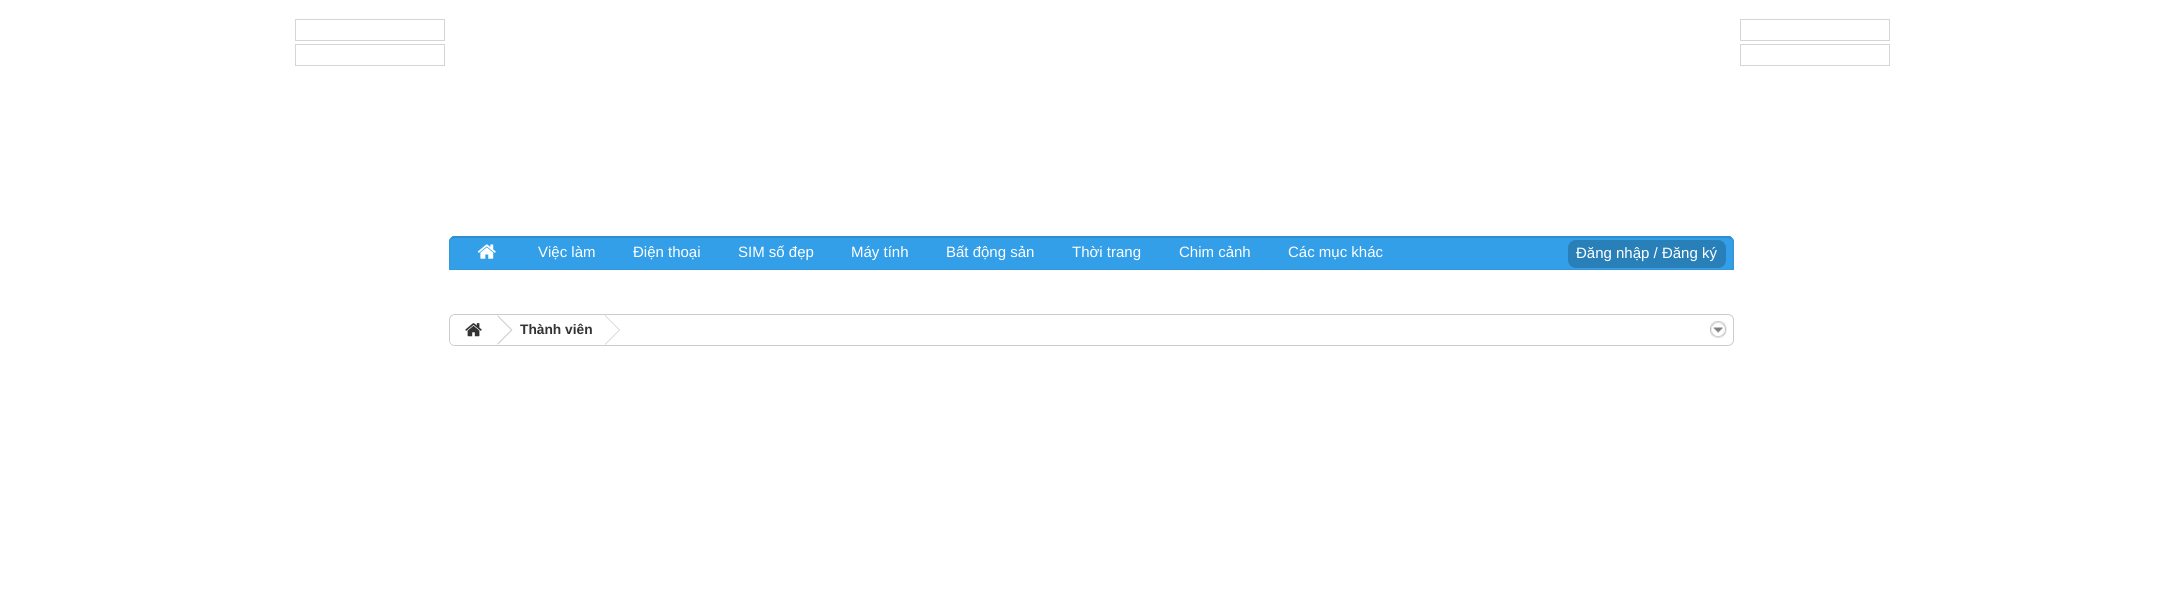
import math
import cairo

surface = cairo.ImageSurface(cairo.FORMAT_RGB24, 2181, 615)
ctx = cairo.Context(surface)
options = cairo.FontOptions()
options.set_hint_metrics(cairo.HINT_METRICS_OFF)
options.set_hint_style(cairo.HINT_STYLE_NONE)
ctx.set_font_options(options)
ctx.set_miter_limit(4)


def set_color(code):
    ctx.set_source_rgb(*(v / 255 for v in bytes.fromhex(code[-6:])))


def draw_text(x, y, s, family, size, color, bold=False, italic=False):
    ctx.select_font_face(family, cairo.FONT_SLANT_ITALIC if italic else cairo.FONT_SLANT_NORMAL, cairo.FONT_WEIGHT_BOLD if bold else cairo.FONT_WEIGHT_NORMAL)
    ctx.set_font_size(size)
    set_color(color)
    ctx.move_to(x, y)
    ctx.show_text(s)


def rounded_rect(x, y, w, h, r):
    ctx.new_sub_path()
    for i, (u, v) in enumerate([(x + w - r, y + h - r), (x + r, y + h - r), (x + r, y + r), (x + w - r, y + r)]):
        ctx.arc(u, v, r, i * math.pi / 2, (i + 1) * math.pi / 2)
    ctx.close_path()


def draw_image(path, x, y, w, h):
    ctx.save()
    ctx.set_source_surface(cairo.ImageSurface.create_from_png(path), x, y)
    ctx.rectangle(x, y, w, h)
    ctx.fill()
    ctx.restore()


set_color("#ffffff")
ctx.paint()
ctx.rectangle(295.5, 19.5, 149, 21)
set_color("#d5d5d5")
ctx.set_line_width(1)
ctx.stroke()
ctx.rectangle(295.5, 44.5, 149, 21)
ctx.stroke()
ctx.rectangle(1740.5, 19.5, 149, 21)
ctx.stroke()
ctx.rectangle(1740.5, 44.5, 149, 21)
ctx.stroke()
set_color("#329fe8")
ctx.new_path()
ctx.move_to(455, 236)
ctx.line_to(1728, 236)
ctx.curve_to(1731.5, 236, 1734, 238.5, 1734, 242)
ctx.line_to(1734, 270)
ctx.line_to(449, 270)
ctx.line_to(449, 242)
ctx.curve_to(449, 238.5, 451.5, 236, 455, 236)
ctx.close_path()
ctx.fill()
set_color("#308ece")
ctx.new_path()
ctx.move_to(455, 238)
ctx.line_to(452, 239)
ctx.line_to(451, 238)
ctx.line_to(453, 236)
ctx.line_to(1730, 236)
ctx.line_to(1732, 238)
ctx.line_to(1731, 239)
ctx.line_to(1728, 238)
ctx.close_path()
ctx.fill()
set_color("#3498db")
ctx.new_path()
ctx.move_to(1734, 240.5)
ctx.line_to(1734, 270)
ctx.line_to(1732, 268)
ctx.line_to(1732, 242)
ctx.curve_to(1732, 241, 1731.5, 240, 1731, 239)
ctx.line_to(1732, 238)
ctx.close_path()
ctx.fill()
ctx.new_path()
ctx.move_to(1734, 270)
ctx.line_to(1732, 268)
ctx.line_to(1732, 269)
ctx.line_to(450, 269)
ctx.line_to(449, 270)
ctx.close_path()
ctx.fill()
ctx.new_path()
ctx.move_to(449, 270)
ctx.line_to(449, 242)
ctx.curve_to(449, 240.5, 449.5, 239, 450.5, 238)
ctx.line_to(451.5, 239)
ctx.curve_to(450.5, 240, 450, 241, 450, 242)
ctx.line_to(450, 269)
ctx.close_path()
ctx.fill()
draw_image("assets/img1.png", 477, 244, 19, 15)
draw_text(538, 257, "Việc làm", "Liberation Sans", 15, "#ffffff")
draw_text(633, 257, "Điện thoại", "Liberation Sans", 15, "#ffffff")
draw_text(738, 257, "SIM số đẹp", "Liberation Sans", 15, "#ffffff")
draw_text(851, 257, "Máy tính", "Liberation Sans", 15, "#ffffff")
draw_text(946, 257, "Bất động sản", "Liberation Sans", 15, "#ffffff")
draw_text(1072, 257, "Thời trang", "Liberation Sans", 15, "#ffffff")
draw_text(1179, 257, "Chim cảnh", "Liberation Sans", 15, "#ffffff")
draw_text(1288, 257, "Các mục khác", "Liberation Sans", 15, "#ffffff")
set_color("#2980b9")
rounded_rect(1568.5, 240.5, 157, 27, 7.5)
ctx.fill_preserve()
ctx.stroke()
draw_text(1576, 258, "Đăng nhập / Đăng ký", "Liberation Sans", 15, "#ffffff")
rounded_rect(449.5, 314.5, 1284, 31, 5.5)
set_color("#cccccc")
ctx.stroke()
ctx.save()
rounded_rect(450, 315, 1283, 30, 5)
ctx.clip()
set_color("#ffffff")
ctx.new_path()
ctx.move_to(456, 315)
ctx.line_to(498, 315)
ctx.line_to(498, 346)
ctx.line_to(456, 346)
ctx.curve_to(452.5, 346, 450, 343.5, 450, 340)
ctx.line_to(450, 321)
ctx.curve_to(450, 317.5, 452.5, 315, 456, 315)
ctx.close_path()
ctx.fill()
ctx.restore()
draw_image("assets/img2.png", 465, 323, 17, 14)
ctx.new_path()
ctx.move_to(497.5, 345)
ctx.line_to(497.5, 315)
ctx.line_to(512.5, 330)
ctx.close_path()
ctx.fill()
set_color("#ffffff")
ctx.new_path()
ctx.move_to(496, 345)
ctx.line_to(496, 315)
ctx.line_to(511, 330)
ctx.close_path()
ctx.fill()
draw_text(520, 334, "Thành viên", "Liberation Sans", 13.75, "#333333", bold=True)
set_color("#cccccc")
ctx.new_path()
ctx.move_to(605, 345)
ctx.line_to(605, 315)
ctx.line_to(620, 330)
ctx.close_path()
ctx.fill()
set_color("#ffffff")
ctx.new_path()
ctx.move_to(604, 345)
ctx.line_to(604, 315)
ctx.line_to(619, 330)
ctx.close_path()
ctx.fill()
draw_image("assets/img3.png", 1710, 321, 17, 17)
surface.write_to_png("output.png")
